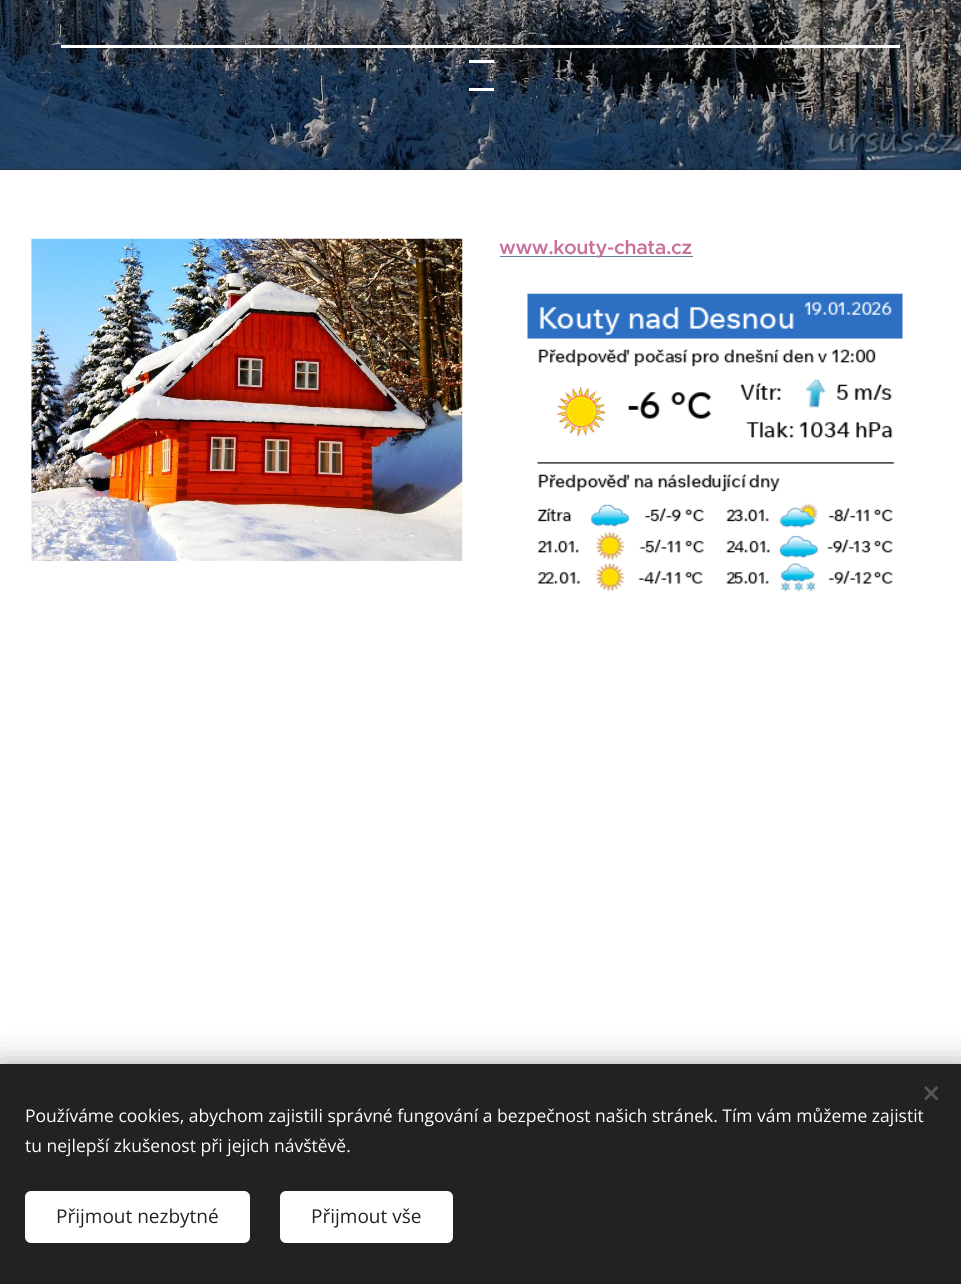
import math
import cairo

surface = cairo.ImageSurface(cairo.FORMAT_RGB24, 961, 1284)
ctx = cairo.Context(surface)
options = cairo.FontOptions()
options.set_hint_metrics(cairo.HINT_METRICS_OFF)
options.set_hint_style(cairo.HINT_STYLE_NONE)
ctx.set_font_options(options)
ctx.set_miter_limit(4)


def set_color(code):
    ctx.set_source_rgb(*(v / 255 for v in bytes.fromhex(code[-6:])))


def draw_text(x, y, s, family, size, color, bold=False, italic=False):
    ctx.select_font_face(family, cairo.FONT_SLANT_ITALIC if italic else cairo.FONT_SLANT_NORMAL, cairo.FONT_WEIGHT_BOLD if bold else cairo.FONT_WEIGHT_NORMAL)
    ctx.set_font_size(size)
    set_color(color)
    ctx.move_to(x, y)
    ctx.show_text(s)


def draw_spaced(x, y, s, letter, word):
    ctx.move_to(x, y)
    for ch in s:
        ctx.show_text(ch)
        ctx.rel_move_to(letter + word * (ch == ' '), 0)


def fill_rect(x, y, w, h, color):
    set_color(color)
    ctx.rectangle(x, y, w, h)
    ctx.fill()


def rounded_rect(x, y, w, h, r):
    ctx.new_sub_path()
    for i, (u, v) in enumerate([(x + w - r, y + h - r), (x + r, y + h - r), (x + r, y + r), (x + w - r, y + r)]):
        ctx.arc(u, v, r, i * math.pi / 2, (i + 1) * math.pi / 2)
    ctx.close_path()


def draw_shadow(x, y, w, h, r, blur, alpha):
    ctx.push_group_with_content(cairo.CONTENT_ALPHA)
    ctx.set_operator(cairo.OPERATOR_SOURCE)
    for i in range(15, -16, -2):
        e = blur * i / 6
        if min(w, h) + 2 * e > 0:
            ctx.set_source_rgba(0, 0, 0, alpha * math.erfc((i - 1) / 8.5) / 2)
            rounded_rect(x - e, y - e, w + 2 * e, h + 2 * e, max(0, min(r + e + blur * .6, min(w, h) / 2 + e)))
            ctx.fill()
    ctx.mask(ctx.pop_group())


def draw_image(path, x, y, w, h):
    ctx.save()
    ctx.set_source_surface(cairo.ImageSurface.create_from_png(path), x, y)
    ctx.rectangle(x, y, w, h)
    ctx.fill()
    ctx.restore()


set_color("#ffffff")
ctx.paint()
fill_rect(0, 169, 961, 1, "#1b1b1b")
draw_image("assets/img1.png", 0, 0, 961, 170)
fill_rect(61, 45, 839, 3, "#ffffff")
fill_rect(469, 60, 25, 3, "#ffffff")
fill_rect(469, 88, 25, 3, "#ffffff")
draw_image("assets/img2.png", 31, 238, 432, 323)
fill_rect(500, 256, 193, 1, "#647a97")
ctx.select_font_face("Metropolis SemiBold")
ctx.set_font_size(20)
set_color("#c8719e")
draw_spaced(499, 254, "www.kouty-chata.cz", -0.4, 0)
draw_image("assets/img3.png", 527, 293, 376, 299)
set_color("#000000")
draw_shadow(0, 1064, 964, 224, 0, 15.5, 0.33)
fill_rect(0, 1064, 961, 220, "#222222")
set_color("#555555")
ctx.new_path()
ctx.move_to(924, 1098.5)
ctx.line_to(936.5, 1086)
ctx.line_to(938.5, 1088)
ctx.line_to(926, 1100.5)
ctx.close_path()
ctx.fill()
ctx.new_path()
ctx.move_to(926, 1086)
ctx.line_to(938.5, 1098.5)
ctx.line_to(936.5, 1100.5)
ctx.line_to(924, 1088)
ctx.close_path()
ctx.fill()
draw_text(25, 1122, "Používáme cookies, abychom zajistili správné fungování a bezpečnost našich stránek. Tím vám můžeme zajistit", "Open Sans", 17.5, "#ffffff")
draw_text(25, 1152, "tu nejlepší zkušenost při jejich návštěvě.", "Open Sans", 17.5, "#ffffff")
rounded_rect(25, 1191, 225, 52, 6)
ctx.fill()
draw_text(56, 1223, "Přijmout nezbytné", "Open Sans", 19, "#222222")
set_color("#ffffff")
rounded_rect(280, 1191, 173, 52, 6)
ctx.fill()
draw_text(311, 1223, "Přijmout vše", "Open Sans", 19, "#222222")
surface.write_to_png("output.png")
